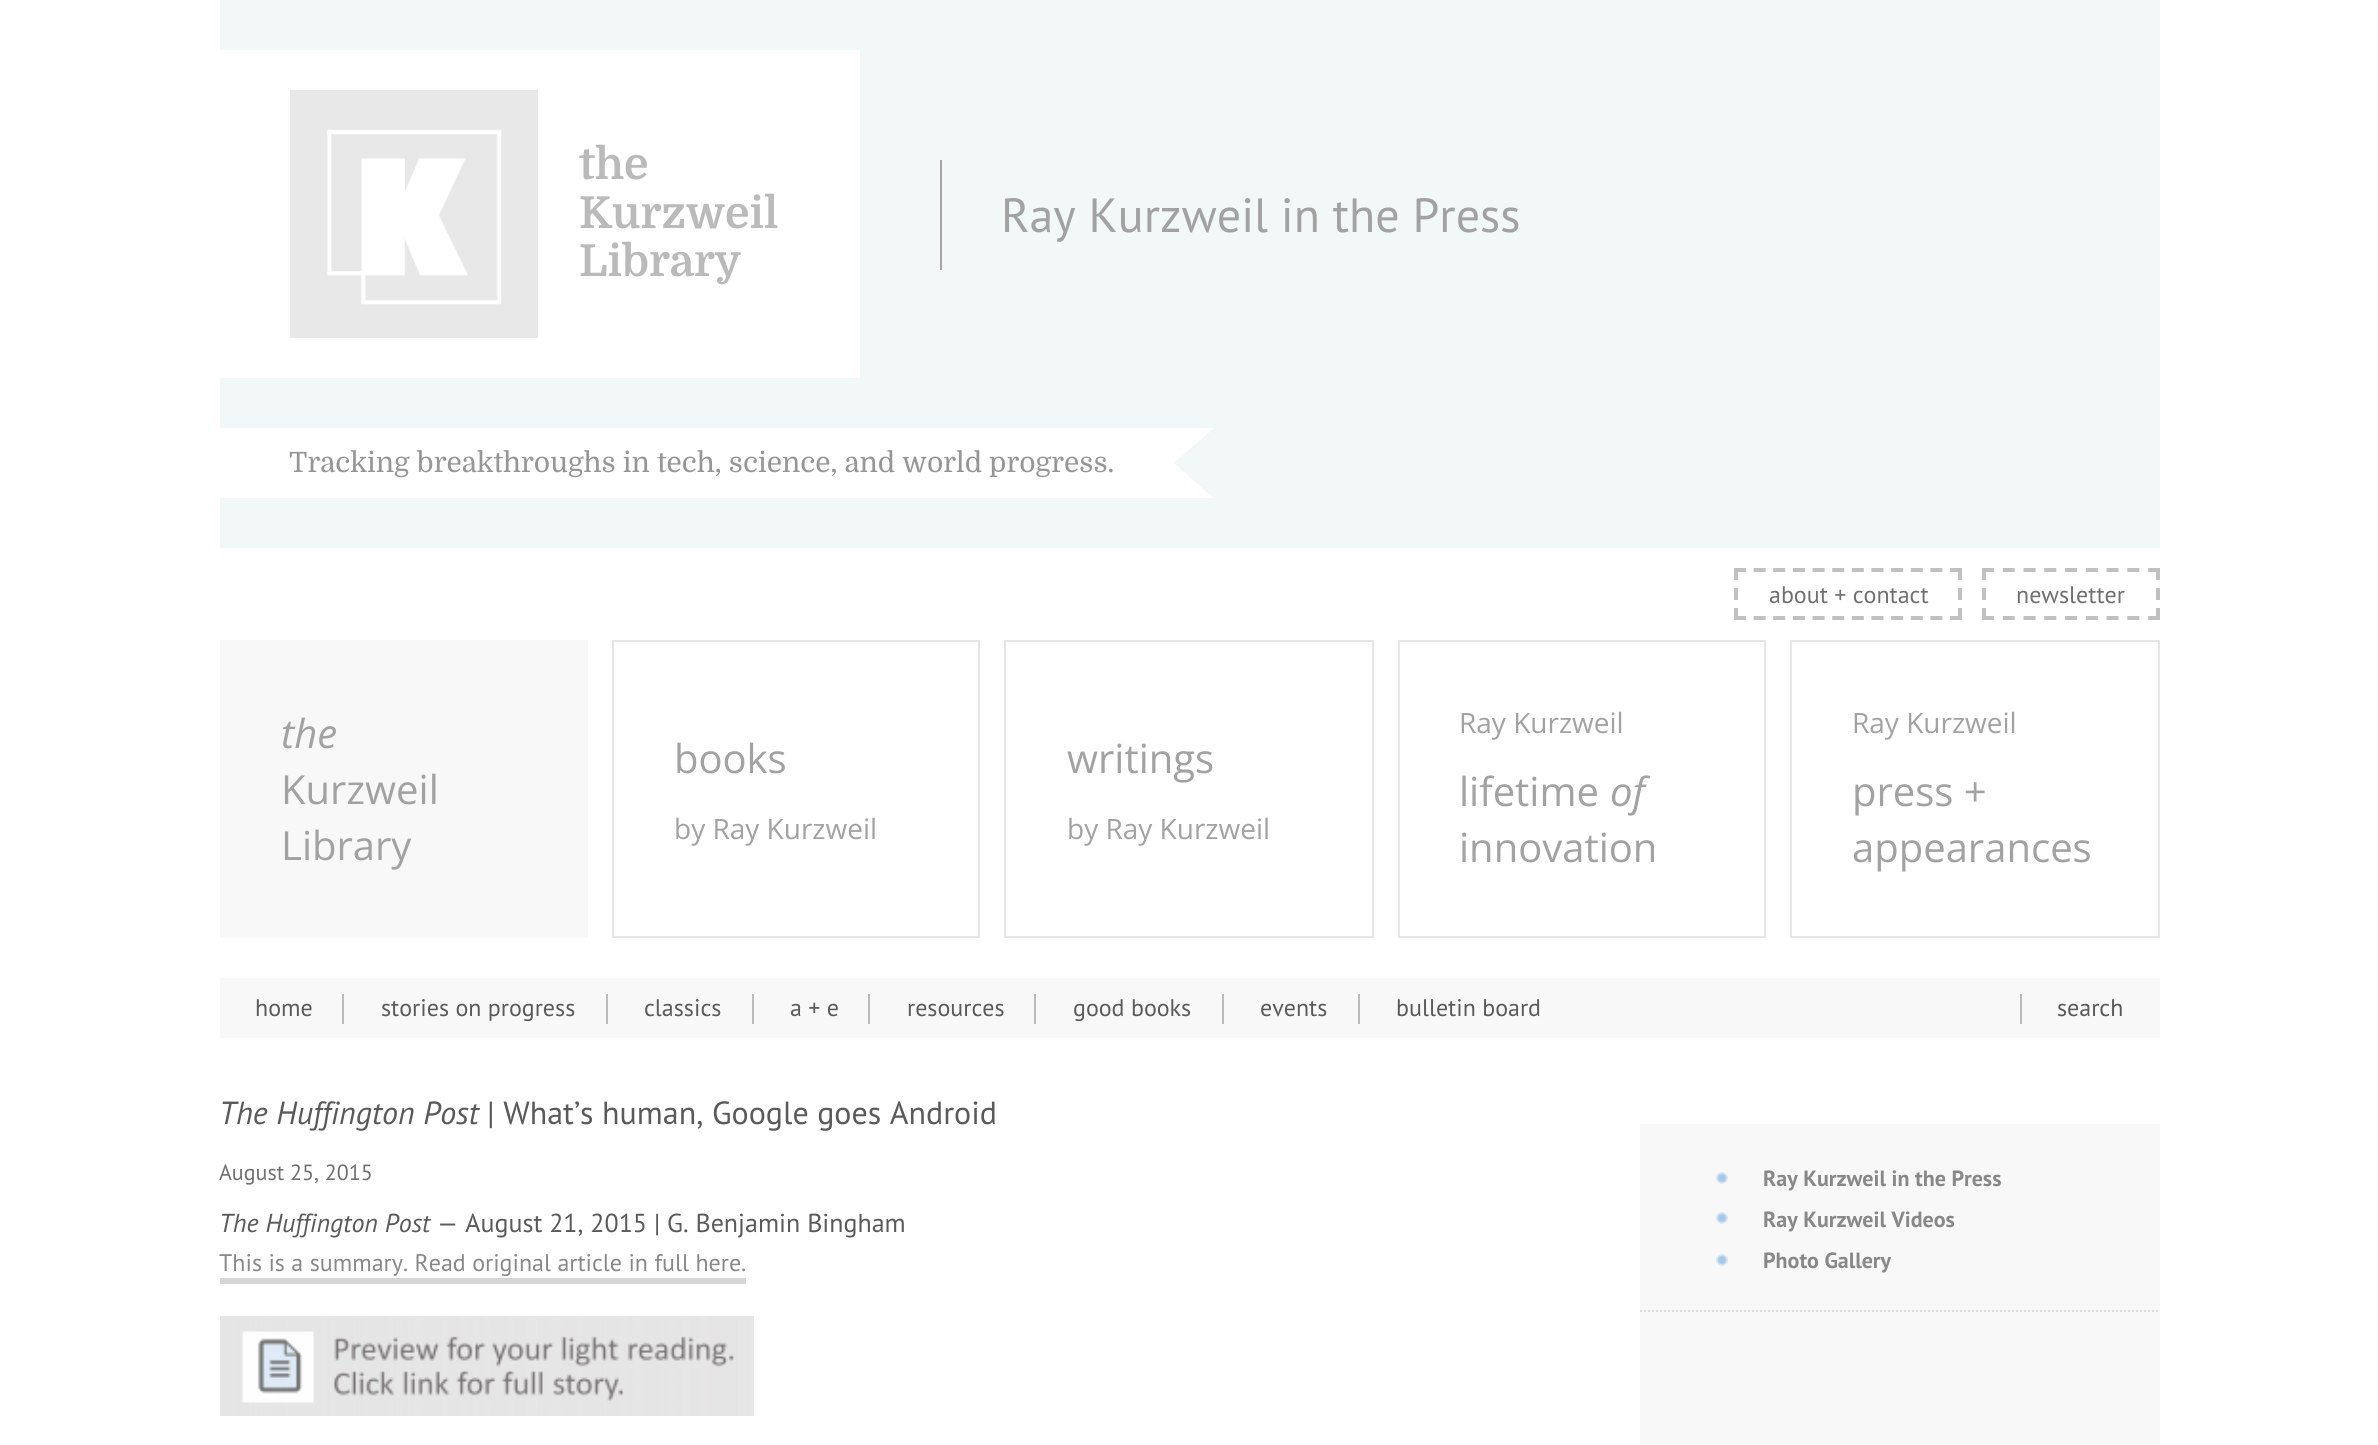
import math
import cairo

surface = cairo.ImageSurface(cairo.FORMAT_RGB24, 2378, 1445)
ctx = cairo.Context(surface)
options = cairo.FontOptions()
options.set_hint_metrics(cairo.HINT_METRICS_OFF)
options.set_hint_style(cairo.HINT_STYLE_NONE)
ctx.set_font_options(options)
ctx.set_miter_limit(4)


def set_color(code):
    ctx.set_source_rgb(*(v / 255 for v in bytes.fromhex(code[-6:])))


def draw_text(x, y, s, family, size, color, bold=False, italic=False):
    ctx.select_font_face(family, cairo.FONT_SLANT_ITALIC if italic else cairo.FONT_SLANT_NORMAL, cairo.FONT_WEIGHT_BOLD if bold else cairo.FONT_WEIGHT_NORMAL)
    ctx.set_font_size(size)
    set_color(color)
    ctx.move_to(x, y)
    ctx.show_text(s)


def fill_rect(x, y, w, h, color):
    set_color(color)
    ctx.rectangle(x, y, w, h)
    ctx.fill()


def draw_image(path, x, y, w, h):
    ctx.save()
    ctx.set_source_surface(cairo.ImageSurface.create_from_png(path), x, y)
    ctx.rectangle(x, y, w, h)
    ctx.fill()
    ctx.restore()


set_color("#ffffff")
ctx.paint()
fill_rect(220, 0, 1940, 548, "#f2f7f8")
fill_rect(220, 50, 640, 328, "#ffffff")
draw_image("assets/img1.png", 290, 90, 248, 248)
draw_text(579, 179, "the", "Domine", 44, "#bababa", bold=True)
draw_text(579, 228, "Kurzweil", "Domine", 44, "#bababa", bold=True)
draw_text(579, 276, "Library", "Domine", 44, "#bababa", bold=True)
set_color("#ffffff")
ctx.new_path()
ctx.move_to(220, 428)
ctx.line_to(220, 498)
ctx.line_to(1213, 498)
ctx.line_to(1174, 463)
ctx.line_to(1214, 428)
ctx.close_path()
ctx.fill()
draw_text(289, 472, "Tracking breakthroughs in tech, science, and world progress.", "Domine", 28, "#969696")
fill_rect(940, 160, 2, 110, "#a7a7a7")
draw_text(1001, 232, "Ray Kurzweil in the Press", "PT Sans", 48, "#a2a2a2")
ctx.new_path()
ctx.move_to(1734, 570)
ctx.line_to(1962, 570)
set_color("#c0c0c0")
ctx.set_line_width(4)
ctx.set_dash([12, 7.64])
ctx.stroke()
ctx.new_path()
ctx.move_to(1960, 568)
ctx.line_to(1960, 580)
ctx.move_to(1960, 588)
ctx.line_to(1960, 600)
ctx.move_to(1960, 608)
ctx.line_to(1960, 620)
ctx.set_dash([])
ctx.stroke()
ctx.new_path()
ctx.move_to(1734, 618)
ctx.line_to(1962, 618)
ctx.set_dash([12, 7.64])
ctx.stroke()
ctx.new_path()
ctx.move_to(1736, 568)
ctx.line_to(1736, 580)
ctx.move_to(1736, 588)
ctx.line_to(1736, 600)
ctx.move_to(1736, 608)
ctx.line_to(1736, 620)
ctx.set_dash([])
ctx.stroke()
draw_text(1769, 603, "about + contact", "PT Sans", 24, "#707070")
ctx.new_path()
ctx.move_to(1982, 570)
ctx.line_to(2160, 570)
set_color("#c0c0c0")
ctx.set_dash([12, 8.76])
ctx.stroke()
ctx.new_path()
ctx.move_to(2158, 568)
ctx.line_to(2158, 580)
ctx.move_to(2158, 588)
ctx.line_to(2158, 600)
ctx.move_to(2158, 608)
ctx.line_to(2158, 620)
ctx.set_dash([])
ctx.stroke()
ctx.new_path()
ctx.move_to(1982, 618)
ctx.line_to(2160, 618)
ctx.set_dash([12, 8.76])
ctx.stroke()
ctx.new_path()
ctx.move_to(1984, 568)
ctx.line_to(1984, 580)
ctx.move_to(1984, 588)
ctx.line_to(1984, 600)
ctx.move_to(1984, 608)
ctx.line_to(1984, 620)
ctx.set_dash([])
ctx.stroke()
draw_text(2016, 603, "newsletter", "PT Sans", 24, "#707070")
ctx.rectangle(221, 641, 366, 296)
set_color("#f8f8f8")
ctx.set_line_width(2)
ctx.stroke()
fill_rect(222, 642, 364, 294, "#f8f8f8")
draw_text(281, 748, "the", "Open Sans", 40, "#a2a2a2", italic=True)
draw_text(281, 804, "Kurzweil", "Open Sans", 40, "#a2a2a2")
draw_text(281, 860, "Library", "Open Sans", 40, "#a2a2a2")
ctx.rectangle(613, 641, 366, 296)
set_color("#e6e6e6")
ctx.stroke()
draw_text(674, 773, "books", "Open Sans", 40, "#a2a2a2")
draw_text(674, 839, "by Ray Kurzweil", "Open Sans", 28, "#a2a2a2")
ctx.rectangle(1005, 641, 368, 296)
set_color("#e6e6e6")
ctx.stroke()
draw_text(1067, 773, "writings", "Open Sans", 40, "#a2a2a2")
draw_text(1067, 839, "by Ray Kurzweil", "Open Sans", 28, "#a2a2a2")
ctx.rectangle(1399, 641, 366, 296)
set_color("#e6e6e6")
ctx.stroke()
draw_text(1459, 733, "Ray Kurzweil", "Open Sans", 28, "#a2a2a2")
draw_text(1459, 806, "lifetime", "Open Sans", 40, "#a2a2a2")
draw_text(1610, 806, "of", "Open Sans", 40, "#a2a2a2", italic=True)
draw_text(1459, 862, "innovation", "Open Sans", 40, "#a2a2a2")
ctx.rectangle(1791, 641, 368, 296)
set_color("#e6e6e6")
ctx.stroke()
draw_text(1852, 733, "Ray Kurzweil", "Open Sans", 28, "#a2a2a2")
draw_text(1852, 806, "press +", "Open Sans", 40, "#a2a2a2")
draw_text(1852, 862, "appearances", "Open Sans", 40, "#a2a2a2")
fill_rect(220, 978, 1940, 60, "#f8f8f8")
draw_text(255, 1016, "home", "PT Sans", 24, "#5a5a5a")
fill_rect(342, 994, 2, 30, "#bbbbbb")
draw_text(381, 1016, "stories on progress", "PT Sans", 24, "#5a5a5a")
fill_rect(606, 994, 2, 30, "#bbbbbb")
draw_text(644, 1016, "classics", "PT Sans", 24, "#5a5a5a")
fill_rect(752, 994, 2, 30, "#bbbbbb")
draw_text(790, 1016, "a + e", "PT Sans", 24, "#5a5a5a")
fill_rect(868, 994, 2, 30, "#bbbbbb")
draw_text(907, 1016, "resources", "PT Sans", 24, "#5a5a5a")
fill_rect(1034, 994, 2, 30, "#bbbbbb")
draw_text(1073, 1016, "good books", "PT Sans", 24, "#5a5a5a")
fill_rect(1222, 994, 2, 30, "#bbbbbb")
draw_text(1260, 1016, "events", "PT Sans", 24, "#5a5a5a")
fill_rect(1358, 994, 2, 30, "#bbbbbb")
draw_text(1396, 1016, "bulletin board", "PT Sans", 24, "#5a5a5a")
fill_rect(2020, 994, 2, 30, "#bbbbbb")
draw_text(2057, 1016, "search", "PT Sans", 24, "#5a5a5a")
draw_text(219, 1124, "The Huffington Post", "PT Sans", 32, "#5a5a5a", italic=True)
draw_text(487, 1124, "| What’s human, Google goes Android", "PT Sans", 32, "#5a5a5a")
draw_text(219, 1180, "August 25, 2015", "PT Sans", 22, "#707070")
draw_text(219, 1232, "The Huffington Post", "PT Sans", 26, "#5a5a5a", italic=True)
draw_text(437, 1232, "— August 21, 2015 | G. Benjamin Bingham", "PT Sans", 26, "#5a5a5a")
draw_text(219, 1271, "This is a summary. Read original article in full here.", "PT Sans", 24, "#888888")
fill_rect(220, 1278, 526, 6, "#d6d6d6")
draw_image("assets/img2.png", 220, 1316, 534, 100)
fill_rect(1640, 1124, 520, 321, "#f8f8f8")
ctx.new_path()
ctx.move_to(1640, 1311)
ctx.line_to(2158, 1311)
set_color("#dcdcdc")
ctx.set_dash([2, 2])
ctx.stroke()
draw_image("assets/img3.png", 1716, 1172, 12, 12)
draw_text(1763, 1186, "Ray Kurzweil in the Press", "PT Sans", 22, "#888888", bold=True)
draw_image("assets/img3.png", 1716, 1212, 12, 12)
draw_text(1763, 1227, "Ray Kurzweil Videos", "PT Sans", 22, "#888888", bold=True)
draw_image("assets/img3.png", 1716, 1254, 12, 12)
draw_text(1763, 1268, "Photo Gallery", "PT Sans", 22, "#888888", bold=True)
surface.write_to_png("output.png")
